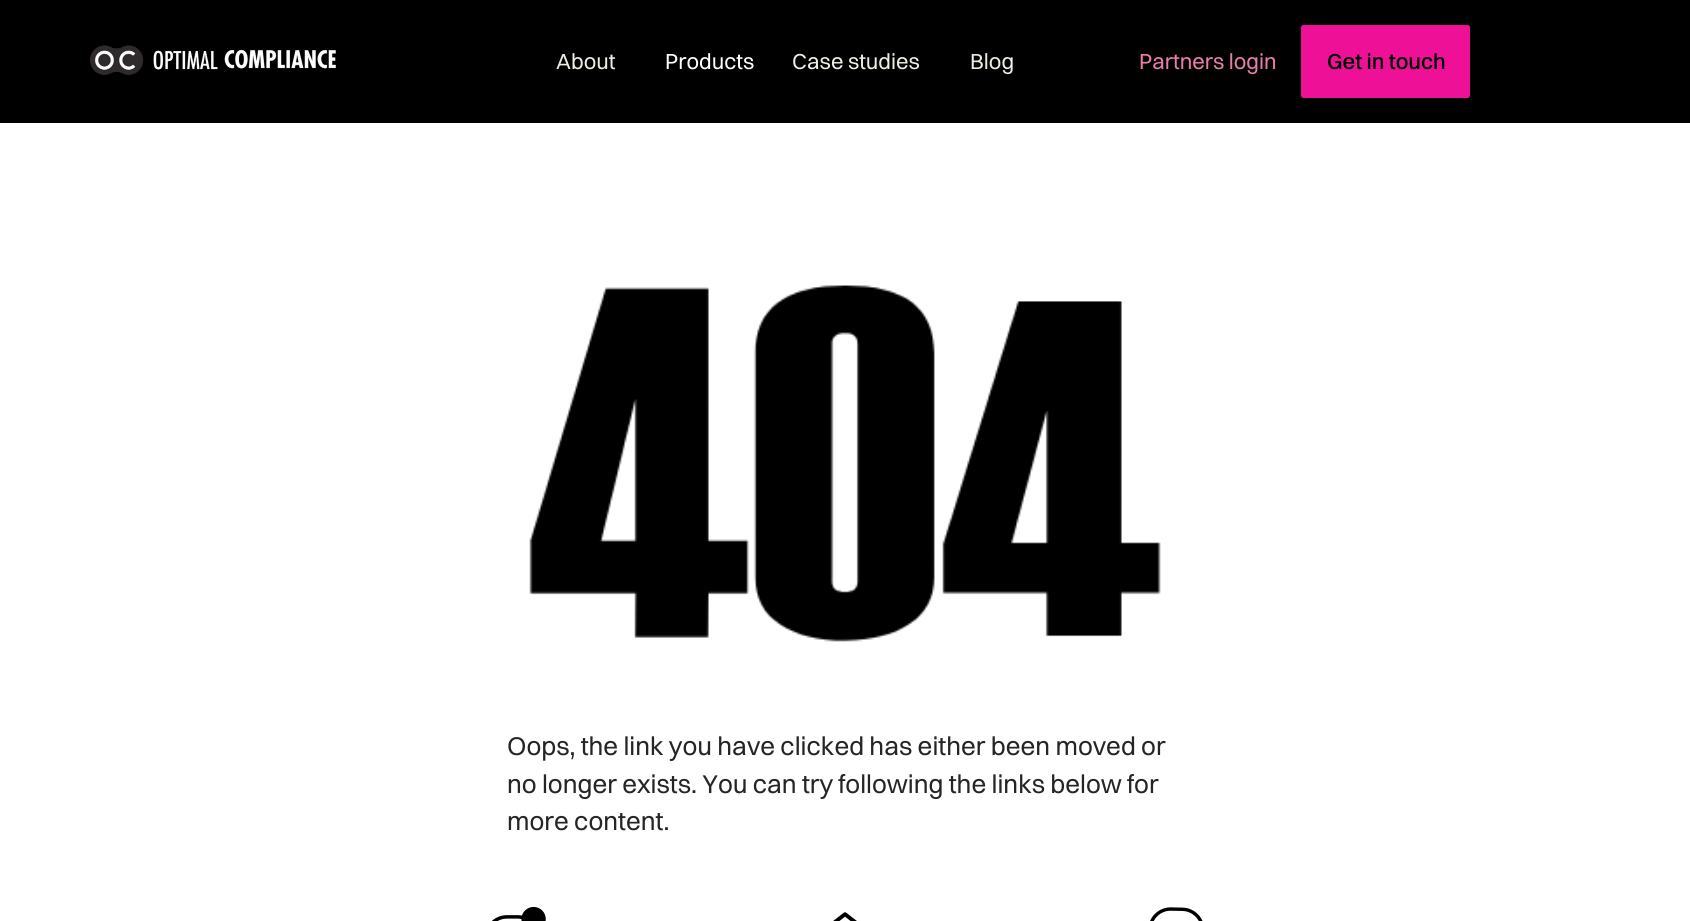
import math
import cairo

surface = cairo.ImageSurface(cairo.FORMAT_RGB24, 1690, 921)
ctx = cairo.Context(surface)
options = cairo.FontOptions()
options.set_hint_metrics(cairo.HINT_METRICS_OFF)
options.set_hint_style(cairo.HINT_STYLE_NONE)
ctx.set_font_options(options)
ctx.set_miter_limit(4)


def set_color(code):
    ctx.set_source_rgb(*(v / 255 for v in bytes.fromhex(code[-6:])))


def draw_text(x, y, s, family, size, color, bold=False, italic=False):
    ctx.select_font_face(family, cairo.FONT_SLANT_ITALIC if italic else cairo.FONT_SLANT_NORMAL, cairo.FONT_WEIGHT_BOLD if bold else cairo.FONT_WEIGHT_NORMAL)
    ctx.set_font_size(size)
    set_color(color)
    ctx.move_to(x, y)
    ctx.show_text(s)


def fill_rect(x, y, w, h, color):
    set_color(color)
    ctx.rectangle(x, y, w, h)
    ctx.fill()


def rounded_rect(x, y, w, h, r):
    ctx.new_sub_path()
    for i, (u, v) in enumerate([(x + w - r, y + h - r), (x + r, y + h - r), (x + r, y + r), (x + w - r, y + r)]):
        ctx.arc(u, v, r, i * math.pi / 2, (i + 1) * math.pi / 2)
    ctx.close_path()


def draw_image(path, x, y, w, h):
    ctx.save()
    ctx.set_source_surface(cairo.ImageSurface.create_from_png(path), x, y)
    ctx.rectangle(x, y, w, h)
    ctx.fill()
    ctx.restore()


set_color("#ffffff")
ctx.paint()
fill_rect(0, 0, 1690, 123, "#000000")
draw_image("assets/img1.png", 89, 45, 247, 30)
draw_text(556, 69, "About", "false", 22, "#eeede6")
draw_text(665, 69, "Products", "false", 22, "#ffffff")
draw_text(792, 69, "Case studies", "false", 22, "#eeede6")
draw_text(970, 69, "Blog", "false", 22, "#eeede6")
draw_text(1139, 69, "Partners login", "false", 22, "#e87fab")
set_color("#ee1198")
rounded_rect(1301, 25, 169, 73, 2.5)
ctx.fill()
draw_text(1327, 69, "Get in touch", "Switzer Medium", 22, "#000000")
draw_image("assets/img2.png", 529, 285, 632, 357)
draw_text(507, 755, "Oops, the link you have clicked has either been moved or", "false", 25.95, "#252525")
draw_text(507, 793, "no longer exists. You can try following the links below for", "false", 25.95, "#252525")
draw_text(507, 830, "more content.", "false", 25.95, "#252525")
draw_image("assets/img3.png", 492, 906, 54, 15)
draw_image("assets/img4.png", 833, 912, 24, 9)
draw_image("assets/img5.png", 1150, 907, 53, 14)
surface.write_to_png("output.png")
